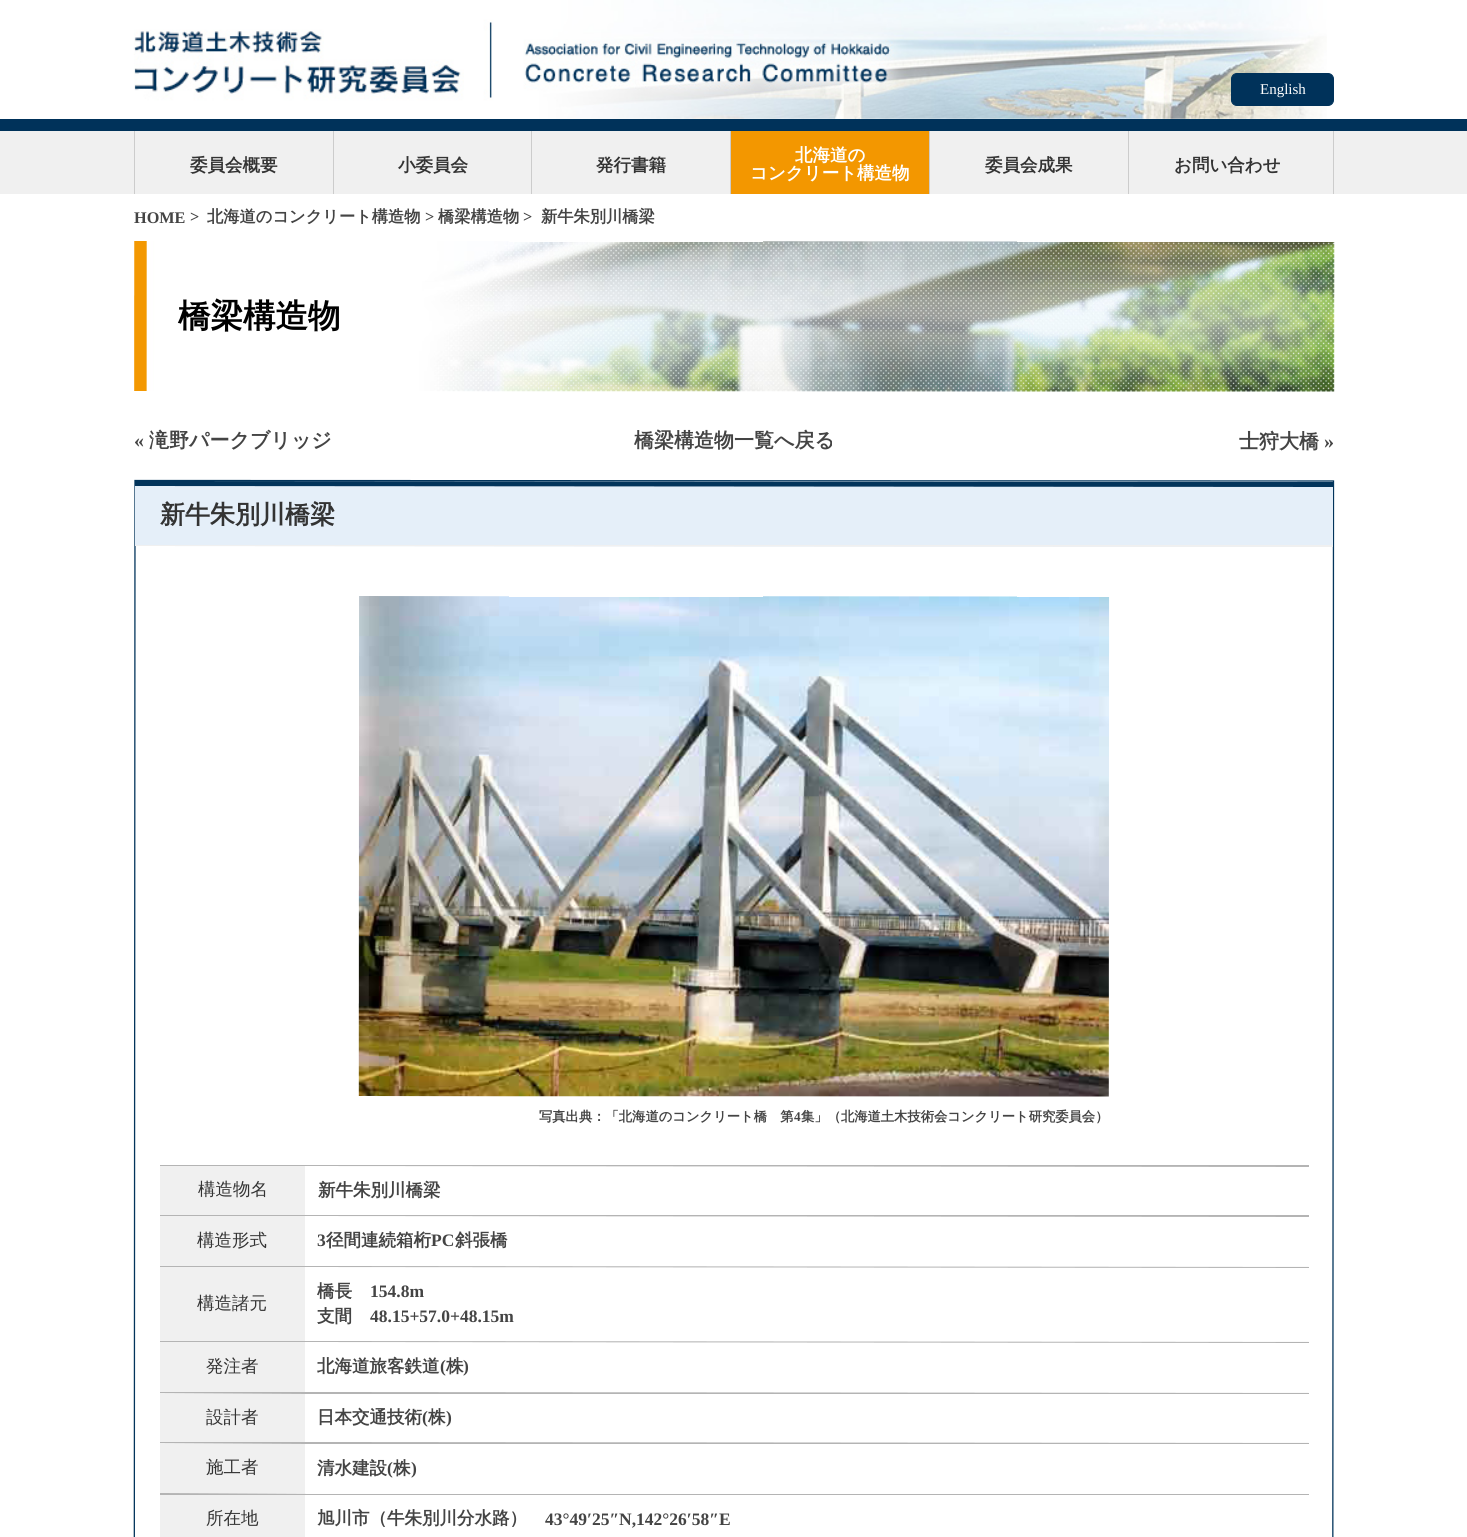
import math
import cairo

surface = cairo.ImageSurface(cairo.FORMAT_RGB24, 1467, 1537)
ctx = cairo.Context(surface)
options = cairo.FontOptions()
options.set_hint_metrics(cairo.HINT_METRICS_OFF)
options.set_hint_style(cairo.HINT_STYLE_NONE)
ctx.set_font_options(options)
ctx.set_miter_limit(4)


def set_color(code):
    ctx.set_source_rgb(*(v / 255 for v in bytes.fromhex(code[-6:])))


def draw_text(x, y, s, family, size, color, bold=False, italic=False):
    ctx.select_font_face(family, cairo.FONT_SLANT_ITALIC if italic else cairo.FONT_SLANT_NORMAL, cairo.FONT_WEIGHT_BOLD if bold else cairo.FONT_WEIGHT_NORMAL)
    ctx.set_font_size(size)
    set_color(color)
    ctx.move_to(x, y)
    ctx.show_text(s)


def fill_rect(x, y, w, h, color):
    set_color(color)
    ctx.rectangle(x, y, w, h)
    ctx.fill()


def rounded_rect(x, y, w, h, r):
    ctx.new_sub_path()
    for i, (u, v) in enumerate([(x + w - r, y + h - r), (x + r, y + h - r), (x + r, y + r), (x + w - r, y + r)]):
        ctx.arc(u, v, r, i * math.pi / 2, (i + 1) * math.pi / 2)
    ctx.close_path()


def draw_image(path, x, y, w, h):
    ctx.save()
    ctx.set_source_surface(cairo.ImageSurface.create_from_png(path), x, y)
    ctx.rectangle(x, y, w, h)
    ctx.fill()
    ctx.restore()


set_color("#ffffff")
ctx.paint()
draw_image("assets/img1.png", 133, 0, 1194, 119)
set_color("#00325a")
rounded_rect(1231.5, 73.5, 102, 32, 5.5)
ctx.fill_preserve()
ctx.set_line_width(1)
ctx.stroke()
draw_text(1260, 94, "English", "Liberation Serif", 15, "#ffffff")
fill_rect(0, 131, 1467, 63, "#f0f0f0")
fill_rect(0, 119, 1467, 12, "#00325a")
fill_rect(333, 131, 1, 63, "#cccccc")
fill_rect(134, 131, 1, 63, "#cccccc")
draw_text(190, 171, "委員会概要", "WenQuanYi Zen Hei", 17.5, "#333333", bold=True)
fill_rect(531, 131, 1, 63, "#cccccc")
draw_text(398, 171, "小委員会", "WenQuanYi Zen Hei", 17.5, "#333333", bold=True)
fill_rect(730, 131, 1, 63, "#cccccc")
draw_text(596, 171, "発行書籍", "WenQuanYi Zen Hei", 17.5, "#333333", bold=True)
fill_rect(929, 131, 1, 63, "#cccccc")
fill_rect(731, 131, 198, 63, "#f39700")
draw_text(795, 161, "北海道の", "WenQuanYi Zen Hei", 17.5, "#ffffff", bold=True)
draw_text(750, 179, "コンクリート構造物", "WenQuanYi Zen Hei", 17.5, "#ffffff", bold=True)
fill_rect(1128, 131, 1, 63, "#cccccc")
draw_text(985, 171, "委員会成果", "WenQuanYi Zen Hei", 17.5, "#333333", bold=True)
fill_rect(1333, 131, 1, 63, "#cccccc")
draw_text(1174, 171, "お問い合わせ", "WenQuanYi Zen Hei", 17.5, "#333333", bold=True)
draw_text(134, 223, "HOME", "Liberation Serif", 16.25, "#444444", bold=True)
draw_text(190, 222, ">", "Liberation Serif", 16.25, "#444444", bold=True)
draw_text(207, 222, "北海道のコンクリート構造物", "WenQuanYi Zen Hei", 16.25, "#444444", bold=True)
draw_text(425, 222, ">", "Liberation Serif", 16.25, "#444444", bold=True)
draw_text(438, 222, "橋梁構造物", "WenQuanYi Zen Hei", 16.25, "#444444", bold=True)
draw_text(523, 222, ">", "Liberation Serif", 16.25, "#444444", bold=True)
draw_text(541, 222, "新牛朱別川橋梁", "WenQuanYi Zen Hei", 16.25, "#444444", bold=True)
draw_image("assets/img2.png", 134, 241, 1201, 151)
draw_text(178, 327, "橋梁構造物", "WenQuanYi Zen Hei", 32.5, "#000000", bold=True)
draw_text(134, 447, "«", "Liberation Serif", 20, "#444444", bold=True)
draw_text(149, 447, "滝野パークブリッジ", "WenQuanYi Zen Hei", 20, "#444444", bold=True)
draw_text(634, 447, "橋梁構造物一覧へ戻る", "WenQuanYi Zen Hei", 20, "#444444", bold=True)
draw_text(1239, 448, "士狩大橋", "WenQuanYi Zen Hei", 20, "#444444", bold=True)
draw_text(1324, 448, "»", "Liberation Serif", 20, "#444444", bold=True)
ctx.new_path()
ctx.move_to(135, 480.5)
ctx.line_to(1333.5, 481)
ctx.line_to(1332.5, 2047.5)
ctx.line_to(134, 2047)
ctx.close_path()
set_color("#02345b")
ctx.set_line_width(1.3)
ctx.stroke()
set_color("#e5eff9")
ctx.new_path()
ctx.move_to(135, 546)
ctx.line_to(135, 481)
ctx.line_to(1333, 482)
ctx.line_to(1333, 547)
ctx.close_path()
ctx.fill()
set_color("#02345b")
ctx.new_path()
ctx.move_to(135, 486)
ctx.line_to(135, 481)
ctx.line_to(1333, 482)
ctx.line_to(1333, 487)
ctx.close_path()
ctx.fill()
set_color("#f0f0f0")
ctx.new_path()
ctx.move_to(135, 546)
ctx.line_to(135, 545)
ctx.line_to(1333, 545)
ctx.line_to(1333, 547)
ctx.close_path()
ctx.fill()
draw_text(160, 523, "新牛朱別川橋梁", "WenQuanYi Zen Hei", 25, "#333333", bold=True)
draw_image("assets/img3.png", 358, 596, 752, 501)
draw_text(539, 1121, "写真出典：「北海道のコンクリート橋　第", "WenQuanYi Zen Hei", 13.3, "#444444", bold=True)
draw_text(794, 1121, "4", "Liberation Serif", 13.3, "#444444", bold=True)
draw_text(801, 1121, "集」（北海道土木技術会コンクリート研究委員会）", "WenQuanYi Zen Hei", 13.3, "#444444", bold=True)
fill_rect(160, 1166, 145, 49, "#f0f0f0")
set_color("#b4b4b4")
ctx.new_path()
ctx.move_to(305, 1165)
ctx.line_to(1309, 1165)
ctx.line_to(1309, 1167)
ctx.line_to(305, 1166)
ctx.close_path()
ctx.fill()
fill_rect(160, 1165, 146, 1, "#b4b4b4")
draw_text(198, 1195, "構造物名", "WenQuanYi Zen Hei Medium", 17.5, "#333333")
draw_text(318, 1196, "新牛朱別川橋梁", "WenQuanYi Zen Hei", 17.5, "#444444", bold=True)
fill_rect(160, 1216, 145, 50, "#f0f0f0")
set_color("#b4b4b4")
ctx.new_path()
ctx.move_to(305, 1215)
ctx.line_to(1309, 1215)
ctx.line_to(1309, 1217)
ctx.line_to(305, 1216)
ctx.close_path()
ctx.fill()
fill_rect(160, 1215, 146, 1, "#b4b4b4")
draw_text(197, 1246, "構造形式", "WenQuanYi Zen Hei Medium", 17.5, "#333333")
draw_text(317, 1246, "3", "Liberation Serif", 17.5, "#444444", bold=True)
draw_text(326, 1246, "径間連続箱桁", "WenQuanYi Zen Hei", 17.5, "#444444", bold=True)
draw_text(431, 1246, "PC", "Liberation Serif", 17.5, "#444444", bold=True)
draw_text(455, 1246, "斜張橋", "WenQuanYi Zen Hei", 17.5, "#444444", bold=True)
fill_rect(160, 1267, 145, 74, "#f0f0f0")
set_color("#b4b4b4")
ctx.new_path()
ctx.move_to(305, 1266)
ctx.line_to(1309, 1267)
ctx.line_to(1309, 1268)
ctx.line_to(305, 1267)
ctx.close_path()
ctx.fill()
fill_rect(160, 1266, 146, 1, "#b4b4b4")
draw_text(197, 1309, "構造諸元", "WenQuanYi Zen Hei Medium", 17.5, "#333333")
draw_text(317, 1297, "橋長", "WenQuanYi Zen Hei", 17.5, "#444444", bold=True)
draw_text(370, 1297, "154.8m", "Liberation Serif", 17.5, "#444444", bold=True)
draw_text(317, 1322, "支間", "WenQuanYi Zen Hei", 17.5, "#444444", bold=True)
draw_text(370, 1322, "48.15+57.0+48.15m", "Liberation Serif", 17.5, "#444444", bold=True)
fill_rect(160, 1342, 145, 50, "#f0f0f0")
set_color("#b4b4b4")
ctx.new_path()
ctx.move_to(305, 1341)
ctx.line_to(1309, 1342)
ctx.line_to(1309, 1343)
ctx.line_to(305, 1342)
ctx.close_path()
ctx.fill()
fill_rect(160, 1341, 146, 1, "#b4b4b4")
draw_text(206, 1372, "発注者", "WenQuanYi Zen Hei Medium", 17.5, "#333333")
draw_text(317, 1372, "北海道旅客鉄道", "WenQuanYi Zen Hei", 17.5, "#444444", bold=True)
draw_text(440, 1372, "(", "Liberation Serif", 17.5, "#444444", bold=True)
draw_text(446, 1372, "株", "WenQuanYi Zen Hei", 17.5, "#444444", bold=True)
draw_text(463, 1372, ")", "Liberation Serif", 17.5, "#444444", bold=True)
fill_rect(160, 1393, 145, 49, "#f0f0f0")
set_color("#b4b4b4")
ctx.new_path()
ctx.move_to(305, 1392)
ctx.line_to(1309, 1393)
ctx.line_to(1309, 1394)
ctx.line_to(305, 1394)
ctx.close_path()
ctx.fill()
ctx.new_path()
ctx.move_to(160, 1392)
ctx.line_to(306, 1392)
ctx.line_to(306, 1394)
ctx.line_to(160, 1393)
ctx.close_path()
ctx.fill()
draw_text(206, 1423, "設計者", "WenQuanYi Zen Hei Medium", 17.5, "#333333")
draw_text(317, 1423, "日本交通技術", "WenQuanYi Zen Hei", 17.5, "#444444", bold=True)
draw_text(422, 1423, "(", "Liberation Serif", 17.5, "#444444", bold=True)
draw_text(428, 1423, "株", "WenQuanYi Zen Hei", 17.5, "#444444", bold=True)
draw_text(446, 1423, ")", "Liberation Serif", 17.5, "#444444", bold=True)
fill_rect(160, 1443, 145, 51, "#f0f0f0")
set_color("#b4b4b4")
ctx.new_path()
ctx.move_to(305, 1442)
ctx.line_to(1309, 1443)
ctx.line_to(1309, 1444)
ctx.line_to(305, 1444)
ctx.close_path()
ctx.fill()
ctx.new_path()
ctx.move_to(160, 1442)
ctx.line_to(306, 1442)
ctx.line_to(306, 1444)
ctx.line_to(160, 1443)
ctx.close_path()
ctx.fill()
draw_text(206, 1473, "施工者", "WenQuanYi Zen Hei Medium", 17.5, "#333333")
draw_text(317, 1474, "清水建設", "WenQuanYi Zen Hei", 17.5, "#444444", bold=True)
draw_text(387, 1474, "(", "Liberation Serif", 17.5, "#444444", bold=True)
draw_text(393, 1474, "株", "WenQuanYi Zen Hei", 17.5, "#444444", bold=True)
draw_text(411, 1474, ")", "Liberation Serif", 17.5, "#444444", bold=True)
fill_rect(160, 1495, 145, 42, "#f0f0f0")
fill_rect(305, 1494, 1004, 1, "#b4b4b4")
ctx.new_path()
ctx.move_to(160, 1493)
ctx.line_to(306, 1494)
ctx.line_to(306, 1495)
ctx.line_to(160, 1495)
ctx.close_path()
ctx.fill()
draw_text(206, 1524, "所在地", "WenQuanYi Zen Hei Medium", 17.5, "#333333")
draw_text(317, 1524, "旭川市（牛朱別川分水路）", "WenQuanYi Zen Hei", 17.5, "#444444", bold=True)
draw_text(545, 1525, "43°49′25″N,142°26′58″E", "Liberation Serif", 17.5, "#444444", bold=True)
surface.write_to_png("output.png")
